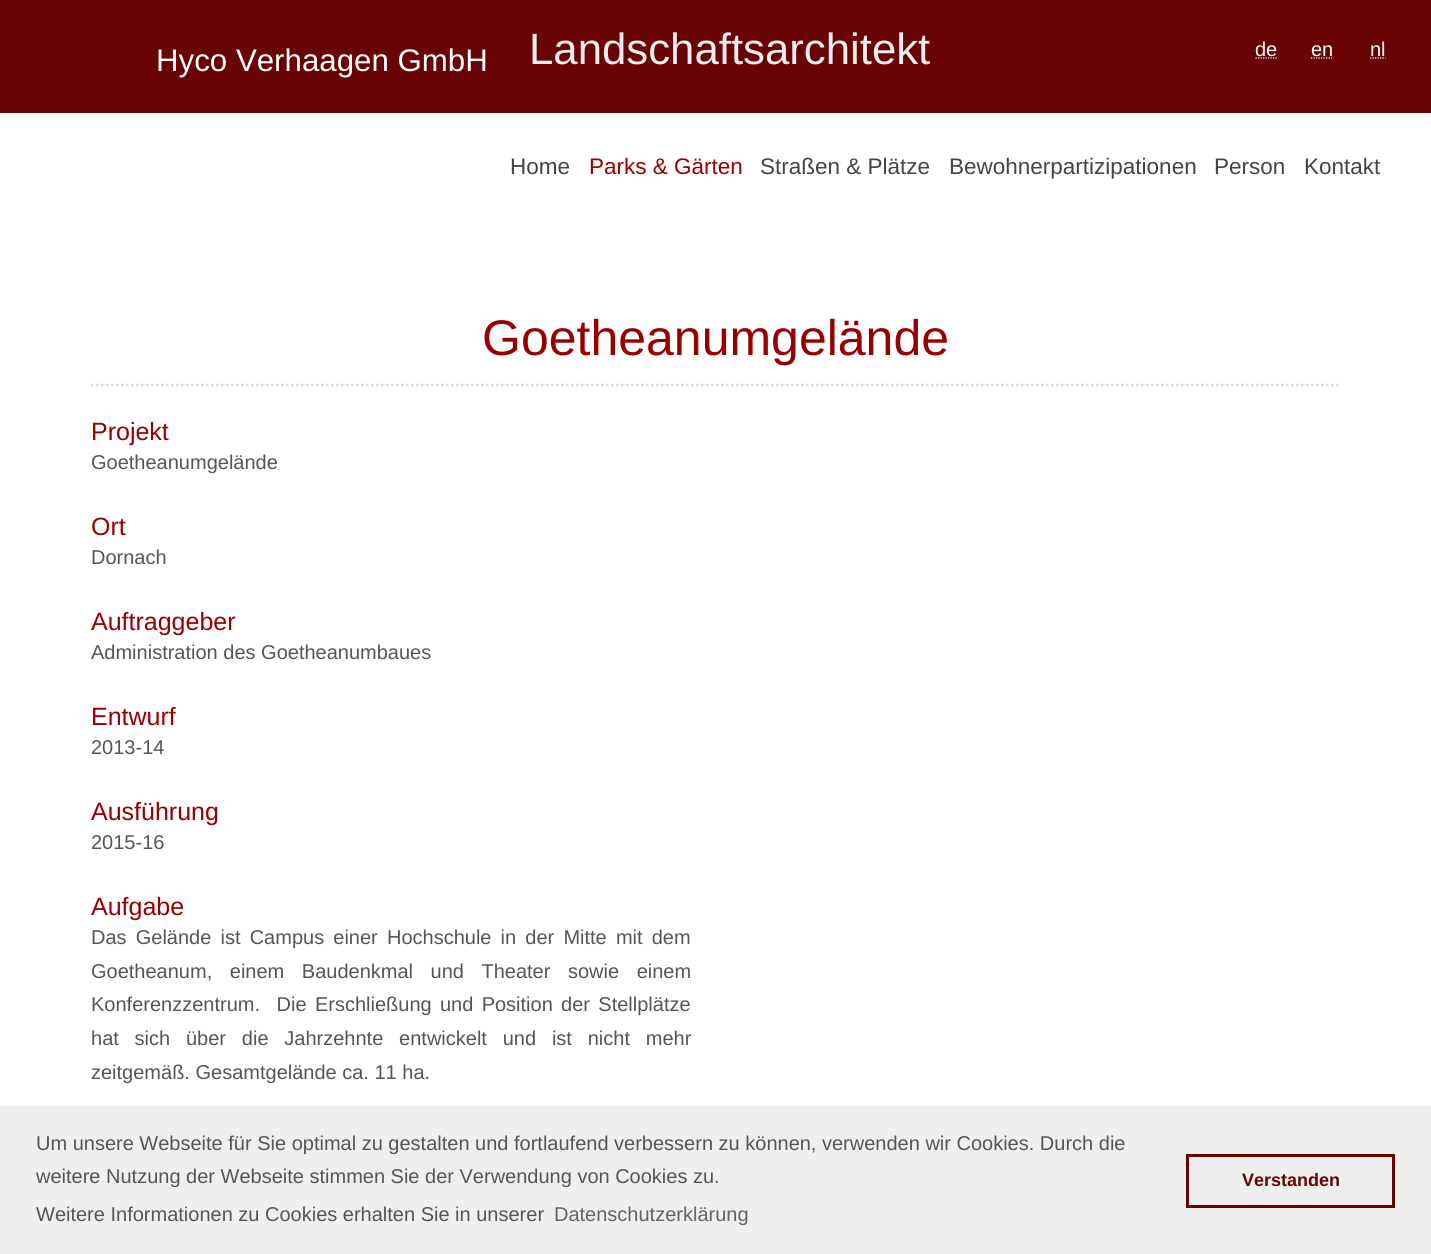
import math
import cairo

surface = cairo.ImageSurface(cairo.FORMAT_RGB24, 1431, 1254)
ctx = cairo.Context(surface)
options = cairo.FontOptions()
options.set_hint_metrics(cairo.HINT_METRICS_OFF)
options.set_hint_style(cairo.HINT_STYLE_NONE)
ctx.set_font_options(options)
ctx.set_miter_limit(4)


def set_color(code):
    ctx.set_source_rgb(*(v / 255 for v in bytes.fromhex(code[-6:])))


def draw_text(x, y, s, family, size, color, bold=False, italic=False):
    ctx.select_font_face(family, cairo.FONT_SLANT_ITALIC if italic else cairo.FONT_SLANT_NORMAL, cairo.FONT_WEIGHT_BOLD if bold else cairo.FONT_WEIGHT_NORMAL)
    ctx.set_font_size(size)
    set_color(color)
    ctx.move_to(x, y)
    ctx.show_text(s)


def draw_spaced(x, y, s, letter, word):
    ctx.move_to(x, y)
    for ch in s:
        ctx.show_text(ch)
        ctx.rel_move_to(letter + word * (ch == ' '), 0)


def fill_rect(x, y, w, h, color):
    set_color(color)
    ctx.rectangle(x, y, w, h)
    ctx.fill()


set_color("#ffffff")
ctx.paint()
fill_rect(0, 0, 1431, 113, "#680404")
draw_text(156, 71, "Hyco Verhaagen GmbH", "Liberation Sans", 31.25, "#ffffff")
draw_text(529, 64, "Landschaftsarchitekt", "Liberation Sans", 43.75, "#ededed")
draw_text(1255, 56, "de", "Liberation Sans", 20, "#ffffff")
ctx.new_path()
ctx.move_to(1255.5, 58)
ctx.line_to(1277.5, 58)
ctx.set_line_width(1.2)
ctx.set_dash([1.25, 1.25])
ctx.stroke()
draw_text(1311, 56, "en", "Liberation Sans", 20, "#ffffff")
ctx.new_path()
ctx.move_to(1311, 58)
ctx.line_to(1333, 58)
ctx.stroke()
draw_text(1370, 56, "nl", "Liberation Sans", 20, "#ffffff")
ctx.new_path()
ctx.move_to(1370, 58)
ctx.line_to(1385.5, 58)
ctx.stroke()
draw_text(510, 174, "Home", "Liberation Sans", 22.5, "#444444")
draw_text(589, 174, "Parks & Gärten", "Liberation Sans", 22.5, "#970000")
draw_text(760, 174, "Straßen & Plätze", "Liberation Sans", 22.5, "#444444")
draw_text(949, 174, "Bewohnerpartizipationen", "Liberation Sans", 22.5, "#444444")
draw_text(1214, 174, "Person", "Liberation Sans", 22.5, "#444444")
draw_text(1304, 174, "Kontakt", "Liberation Sans", 22.5, "#444444")
ctx.new_path()
ctx.move_to(91, 385)
ctx.line_to(1341, 385)
set_color("#dddddd")
ctx.set_line_width(2.5)
ctx.set_dash([2.5, 2.5])
ctx.stroke()
draw_text(482, 355, "Goetheanumgelände", "Liberation Sans", 50, "#970000")
draw_text(91, 440, "Projekt", "Liberation Sans", 25, "#970000")
draw_text(91, 469, "Goetheanumgelände", "Liberation Sans", 20, "#555555")
draw_text(91, 535, "Ort", "Liberation Sans", 25, "#970000")
draw_text(91, 564, "Dornach", "Liberation Sans", 20, "#555555")
draw_text(91, 630, "Auftraggeber", "Liberation Sans", 25, "#970000")
draw_text(91, 659, "Administration des Goetheanumbaues", "Liberation Sans", 20, "#555555")
draw_text(91, 725, "Entwurf", "Liberation Sans", 25, "#970000")
draw_text(91, 754, "2013-14", "Liberation Sans", 20, "#555555")
draw_text(91, 820, "Ausführung", "Liberation Sans", 25, "#970000")
draw_text(91, 849, "2015-16", "Liberation Sans", 20, "#555555")
draw_text(91, 915, "Aufgabe", "Liberation Sans", 25, "#970000")
ctx.set_font_size(20)
set_color("#555555")
draw_spaced(91, 944, "Das Gelände ist Campus einer Hochschule in der Mitte mit dem", 0, 3.6)
draw_spaced(91, 978, "Goetheanum, einem Baudenkmal und Theater sowie einem", 0, 12)
draw_spaced(91, 1011, "Konferenzzentrum.  Die Erschließung und Position der Stellplätze", 0, 2.75)
draw_spaced(91, 1045, "hat sich über die Jahrzehnte entwickelt und ist nicht mehr", 0, 10.25)
draw_text(91, 1079, "zeitgemäß. Gesamtgelände ca. 11 ha.", "Liberation Sans", 20, "#555555")
fill_rect(0, 1106, 1431, 148, "#efefef")
draw_text(36, 1150, "Um unsere Webseite für Sie optimal zu gestalten und fortlaufend verbessern zu können, verwenden wir Cookies. Durch die", "Liberation Sans", 20, "#555555")
draw_text(36, 1183, "weitere Nutzung der Webseite stimmen Sie der Verwendung von Cookies zu.", "Liberation Sans", 20, "#555555")
draw_text(36, 1221, "Weitere Informationen zu Cookies erhalten Sie in unserer", "Liberation Sans", 20, "#555555")
draw_text(554, 1221, "Datenschutzerklärung", "Liberation Sans", 20, "#636363")
ctx.rectangle(1187.5, 1155.5, 206, 51)
set_color("#680404")
ctx.set_line_width(3)
ctx.set_dash([])
ctx.stroke()
draw_text(1242, 1186, "Verstanden", "Liberation Sans", 18, "#680404", bold=True)
surface.write_to_png("output.png")
